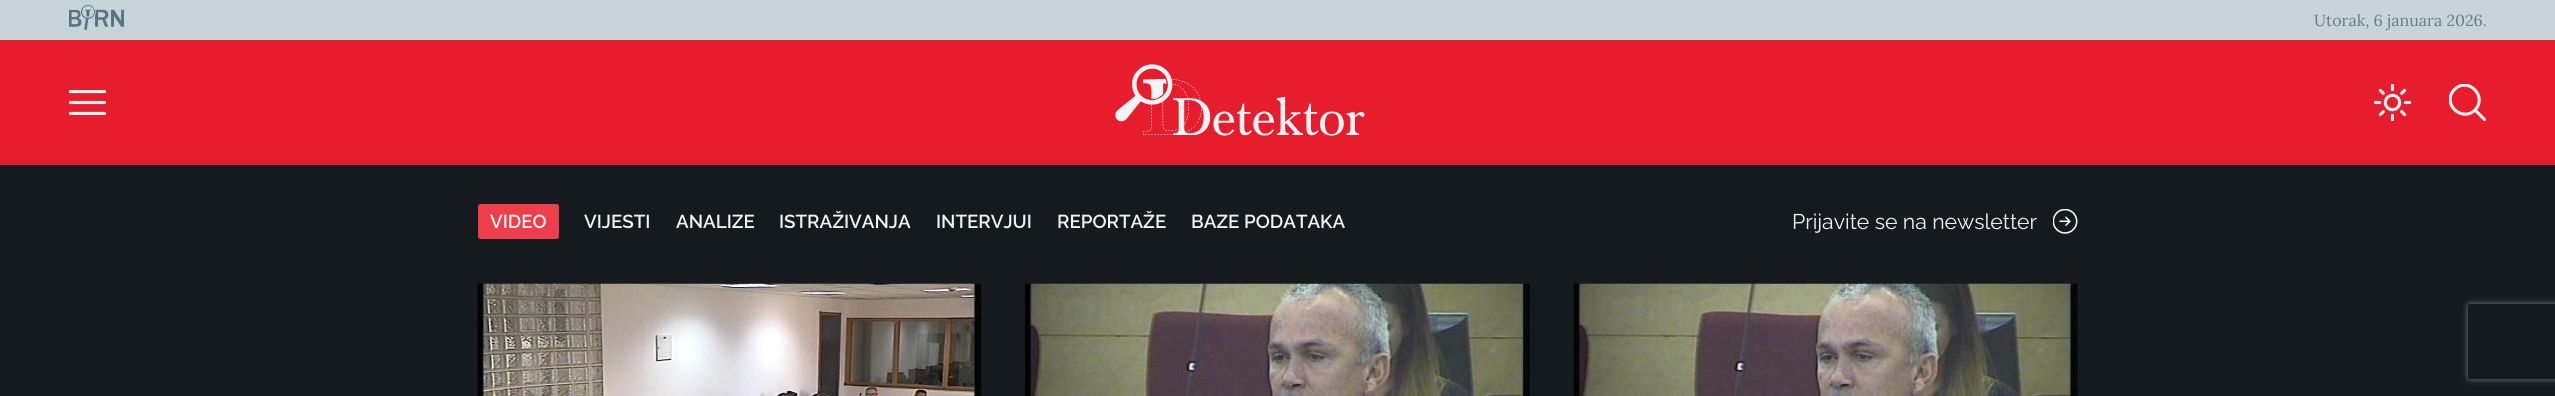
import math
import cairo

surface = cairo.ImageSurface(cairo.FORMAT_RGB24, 2555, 396)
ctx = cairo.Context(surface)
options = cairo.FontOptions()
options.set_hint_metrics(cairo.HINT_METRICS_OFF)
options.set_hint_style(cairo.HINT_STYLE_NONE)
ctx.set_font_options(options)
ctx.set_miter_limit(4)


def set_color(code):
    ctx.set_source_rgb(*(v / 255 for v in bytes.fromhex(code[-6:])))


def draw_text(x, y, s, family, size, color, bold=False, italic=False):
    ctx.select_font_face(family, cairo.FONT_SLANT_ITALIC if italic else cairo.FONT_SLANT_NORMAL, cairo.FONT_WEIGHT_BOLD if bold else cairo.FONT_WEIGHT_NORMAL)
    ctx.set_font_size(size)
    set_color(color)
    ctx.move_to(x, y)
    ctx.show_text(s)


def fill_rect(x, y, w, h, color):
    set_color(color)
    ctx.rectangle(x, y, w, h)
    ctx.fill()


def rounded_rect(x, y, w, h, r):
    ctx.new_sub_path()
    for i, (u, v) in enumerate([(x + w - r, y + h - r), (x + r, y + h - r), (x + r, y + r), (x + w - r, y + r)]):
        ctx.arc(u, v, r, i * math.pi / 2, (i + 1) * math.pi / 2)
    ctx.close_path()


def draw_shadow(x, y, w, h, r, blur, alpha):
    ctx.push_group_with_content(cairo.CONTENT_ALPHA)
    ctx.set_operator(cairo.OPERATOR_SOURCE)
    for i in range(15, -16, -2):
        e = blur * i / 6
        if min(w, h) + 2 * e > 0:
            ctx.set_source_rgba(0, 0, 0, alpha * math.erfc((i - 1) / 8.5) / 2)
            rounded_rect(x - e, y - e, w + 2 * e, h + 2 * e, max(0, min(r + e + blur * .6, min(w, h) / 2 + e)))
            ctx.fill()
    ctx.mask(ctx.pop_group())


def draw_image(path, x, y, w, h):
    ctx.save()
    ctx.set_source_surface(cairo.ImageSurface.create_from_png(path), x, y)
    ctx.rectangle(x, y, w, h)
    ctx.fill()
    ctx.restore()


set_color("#151a1e")
ctx.paint()
fill_rect(0, 0, 2555, 40, "#c7d5da")
draw_image("assets/img1.png", 69, 5, 55, 25)
draw_text(2314, 26, "Utorak, 6 januara 2026.", "Lora", 16, "#657c85")
fill_rect(0, 40, 2555, 125, "#e71d2d")
draw_image("assets/img2.png", 69, 90, 37, 25)
draw_image("assets/img3.png", 1115, 64, 250, 72)
draw_image("assets/img4.png", 2374, 84, 37, 37)
ctx.save()
ctx.rectangle(2449, 84, 37, 37)
ctx.clip()
ctx.new_path()
ctx.move_to(2484.5, 119.5)
ctx.line_to(2475, 110)
ctx.move_to(2475, 110)
ctx.curve_to(2488, 96.5, 2468, 76, 2454.5, 89.5)
ctx.curve_to(2441, 103, 2461.5, 123, 2475, 110)
ctx.close_path()
set_color("#f3f3f4")
ctx.set_line_width(3.1)
ctx.set_line_cap(cairo.LINE_CAP_ROUND)
ctx.set_line_join(cairo.LINE_JOIN_ROUND)
ctx.stroke()
ctx.restore()
set_color("#ef3e4b")
rounded_rect(478, 204, 81, 35, 2.5)
ctx.fill()
draw_text(490, 228, "VIDEO", "Raleway SemiBold", 18.75, "#f3f3f4")
draw_text(584, 228, "VIJESTI", "Raleway SemiBold", 18.75, "#f3f3f4")
draw_text(676, 228, "ANALIZE", "Raleway SemiBold", 18.75, "#f3f3f4")
draw_text(779, 228, "ISTRAŽIVANJA", "Raleway SemiBold", 18.75, "#f3f3f4")
draw_text(936, 228, "INTERVJUI", "Raleway SemiBold", 18.75, "#f3f3f4")
draw_text(1057, 228, "REPORTAŽE", "Raleway SemiBold", 18.75, "#f3f3f4")
draw_text(1191, 228, "BAZE PODATAKA", "Raleway SemiBold", 18.75, "#f3f3f4")
draw_text(1792, 229, "Prijavite se na newsletter", "Raleway", 21.25, "#f3f3f4")
draw_image("assets/img5.png", 2053, 209, 25, 25)
draw_image("assets/img6.png", 477, 283, 505, 113)
draw_image("assets/img7.png", 1025, 283, 505, 113)
draw_image("assets/img8.png", 1573, 283, 505, 113)
ctx.save()
ctx.set_fill_rule(cairo.FILL_RULE_EVEN_ODD)
ctx.new_path()
ctx.move_to(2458, 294)
ctx.line_to(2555, 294)
ctx.line_to(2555, 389)
ctx.line_to(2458, 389)
ctx.close_path()
ctx.move_to(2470.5, 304)
ctx.line_to(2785.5, 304)
ctx.curve_to(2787, 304, 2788, 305, 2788, 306.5)
ctx.line_to(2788, 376.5)
ctx.curve_to(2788, 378, 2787, 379, 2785.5, 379)
ctx.line_to(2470.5, 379)
ctx.curve_to(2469, 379, 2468, 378, 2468, 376.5)
ctx.line_to(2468, 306.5)
ctx.curve_to(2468, 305, 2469, 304, 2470.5, 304)
ctx.close_path()
ctx.clip()
set_color("#808080")
draw_shadow(2468, 304, 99, 75, 2.5, 3, 1)
ctx.restore()
surface.write_to_png("output.png")
